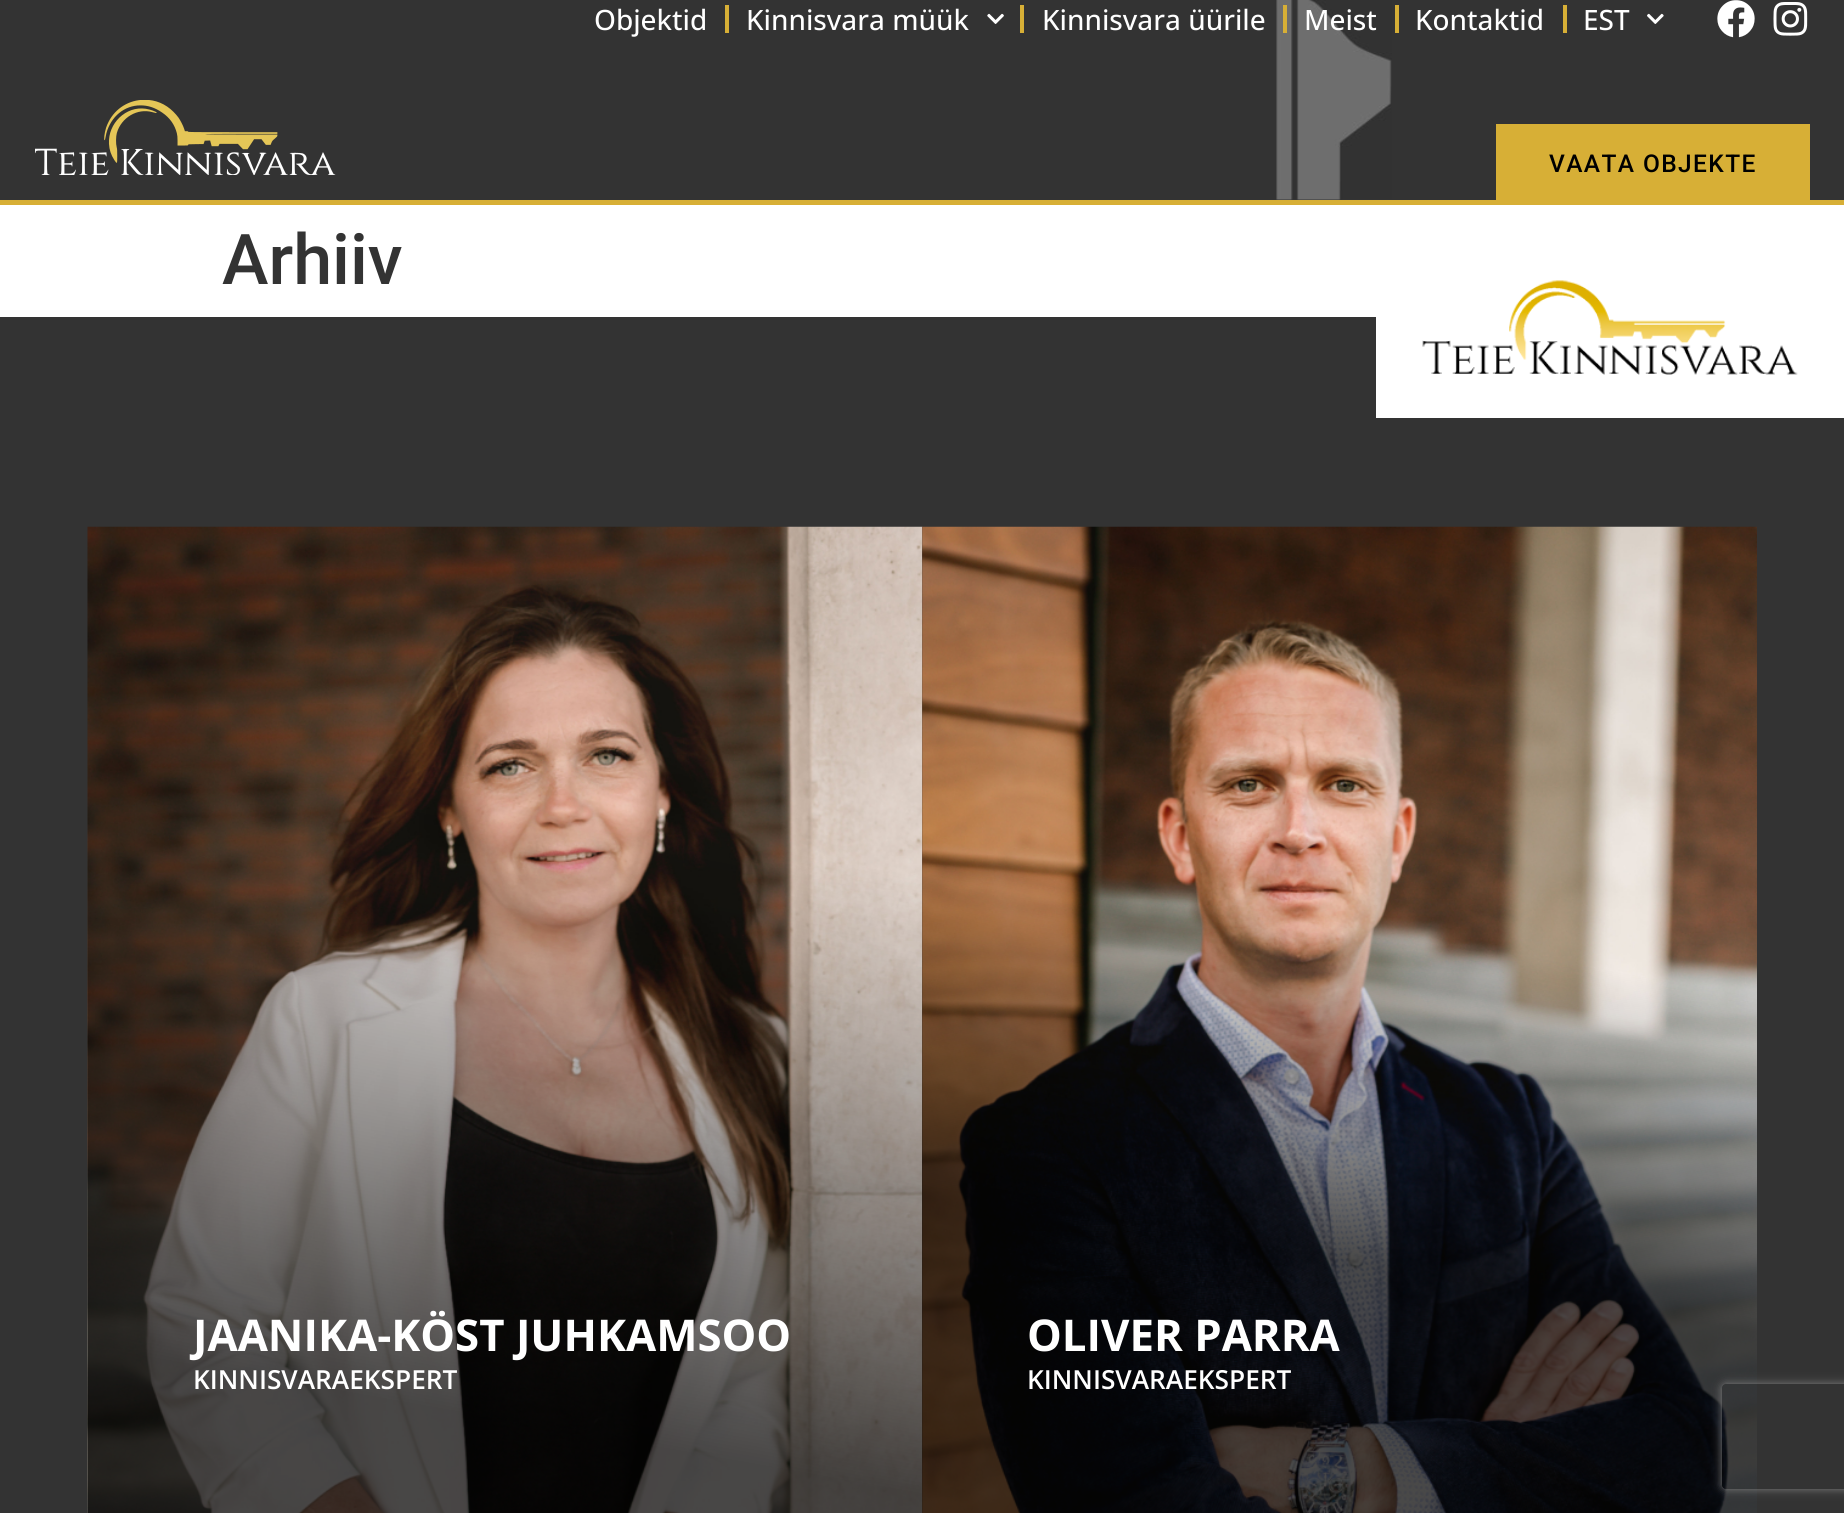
import math
import cairo

surface = cairo.ImageSurface(cairo.FORMAT_RGB24, 1844, 1513)
ctx = cairo.Context(surface)
options = cairo.FontOptions()
options.set_hint_metrics(cairo.HINT_METRICS_OFF)
options.set_hint_style(cairo.HINT_STYLE_NONE)
ctx.set_font_options(options)
ctx.set_miter_limit(4)


def set_color(code):
    ctx.set_source_rgb(*(v / 255 for v in bytes.fromhex(code[-6:])))


def draw_text(x, y, s, family, size, color, bold=False, italic=False):
    ctx.select_font_face(family, cairo.FONT_SLANT_ITALIC if italic else cairo.FONT_SLANT_NORMAL, cairo.FONT_WEIGHT_BOLD if bold else cairo.FONT_WEIGHT_NORMAL)
    ctx.set_font_size(size)
    set_color(color)
    ctx.move_to(x, y)
    ctx.show_text(s)


def draw_spaced(x, y, s, letter, word):
    ctx.move_to(x, y)
    for ch in s:
        ctx.show_text(ch)
        ctx.rel_move_to(letter + word * (ch == ' '), 0)


def fill_rect(x, y, w, h, color):
    set_color(color)
    ctx.rectangle(x, y, w, h)
    ctx.fill()


def rounded_rect(x, y, w, h, r):
    ctx.new_sub_path()
    for i, (u, v) in enumerate([(x + w - r, y + h - r), (x + r, y + h - r), (x + r, y + r), (x + w - r, y + r)]):
        ctx.arc(u, v, r, i * math.pi / 2, (i + 1) * math.pi / 2)
    ctx.close_path()


def draw_shadow(x, y, w, h, r, blur, alpha):
    ctx.push_group_with_content(cairo.CONTENT_ALPHA)
    ctx.set_operator(cairo.OPERATOR_SOURCE)
    for i in range(15, -16, -2):
        e = blur * i / 6
        if min(w, h) + 2 * e > 0:
            ctx.set_source_rgba(0, 0, 0, alpha * math.erfc((i - 1) / 8.5) / 2)
            rounded_rect(x - e, y - e, w + 2 * e, h + 2 * e, max(0, min(r + e + blur * .6, min(w, h) / 2 + e)))
            ctx.fill()
    ctx.mask(ctx.pop_group())


def draw_image(path, x, y, w, h):
    ctx.save()
    ctx.set_source_surface(cairo.ImageSurface.create_from_png(path), x, y)
    ctx.rectangle(x, y, w, h)
    ctx.fill()
    ctx.restore()


set_color("#ffffff")
ctx.paint()
fill_rect(0, 0, 1844, 200, "#333333")
fill_rect(0, 200, 1844, 5, "#d7af36")
draw_image("assets/img1.png", 1276, 0, 116, 200)
draw_image("assets/img2.png", 35, 100, 301, 75)
draw_text(594, 30, "Objektid", "Open Sans Medium", 28, "#ffffff")
fill_rect(725, 5, 4, 28, "#d7af36")
draw_text(746, 30, "Kinnisvara müük", "Open Sans Medium", 28, "#ffffff")
draw_image("assets/img3.png", 987, 13, 17, 11)
fill_rect(1020, 5, 4, 28, "#d7af36")
draw_text(1042, 30, "Kinnisvara üürile", "Open Sans Medium", 28, "#ffffff")
fill_rect(1283, 5, 4, 28, "#d7af36")
draw_text(1304, 30, "Meist", "Open Sans Medium", 28, "#ffffff")
fill_rect(1395, 5, 4, 28, "#d7af36")
draw_text(1415, 30, "Kontaktid", "Open Sans Medium", 28, "#ffffff")
fill_rect(1563, 5, 4, 28, "#d7af36")
draw_text(1583, 30, "EST", "Open Sans Medium", 28, "#ffffff")
draw_image("assets/img4.png", 1647, 13, 17, 11)
draw_image("assets/img5.png", 1717, 0, 38, 38)
draw_image("assets/img6.png", 1773, 2, 35, 34)
fill_rect(1496, 124, 314, 76, "#d7af36")
ctx.select_font_face("Roboto Medium")
ctx.set_font_size(24.5)
set_color("#000000")
draw_spaced(1549, 172, "VAATA OBJEKTE", 1.4, 0)
draw_text(222, 284, "Arhiiv", "Roboto Medium", 70, "#333333")
fill_rect(0, 317, 1844, 1196, "#333333")
fill_rect(1376, 317, 468, 101, "#ffffff")
draw_image("assets/img7.png", 1422, 280, 376, 95)
draw_image("assets/img8.png", 87, 526, 836, 987)
draw_text(193, 1351, "JAANIKA-KÖST JUHKAMSOO", "Open Sans", 43.75, "#ffffff", bold=True)
draw_text(193, 1389, "KINNISVARAEKSPERT", "Open Sans SemiBold", 26.25, "#ffffff")
draw_image("assets/img9.png", 922, 526, 835, 987)
gradient = cairo.LinearGradient(1454, 473, 1225, 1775)
gradient.add_color_stop_rgba(0.35, 0, 0, 0, 0)
gradient.add_color_stop_rgba(0.6, 0, 0, 0, 0.7)
ctx.set_source(gradient)
ctx.rectangle(922, 862, 835, 651)
ctx.fill()
draw_text(1027, 1351, "OLIVER PARRA", "Open Sans", 43.75, "#ffffff", bold=True)
draw_text(1027, 1389, "KINNISVARAEKSPERT", "Open Sans SemiBold", 26.25, "#ffffff")
ctx.save()
ctx.set_fill_rule(cairo.FILL_RULE_EVEN_ODD)
ctx.new_path()
ctx.move_to(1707, 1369)
ctx.line_to(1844, 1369)
ctx.line_to(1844, 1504)
ctx.line_to(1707, 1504)
ctx.close_path()
ctx.move_to(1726, 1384)
ctx.line_to(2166, 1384)
ctx.curve_to(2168, 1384, 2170, 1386, 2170, 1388)
ctx.line_to(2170, 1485)
ctx.curve_to(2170, 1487, 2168, 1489, 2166, 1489)
ctx.line_to(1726, 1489)
ctx.curve_to(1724, 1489, 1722, 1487, 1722, 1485)
ctx.line_to(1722, 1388)
ctx.curve_to(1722, 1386, 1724, 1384, 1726, 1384)
ctx.close_path()
ctx.clip()
set_color("#808080")
draw_shadow(1722, 1384, 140, 105, 4, 4.5, 1)
ctx.restore()
surface.write_to_png("output.png")
